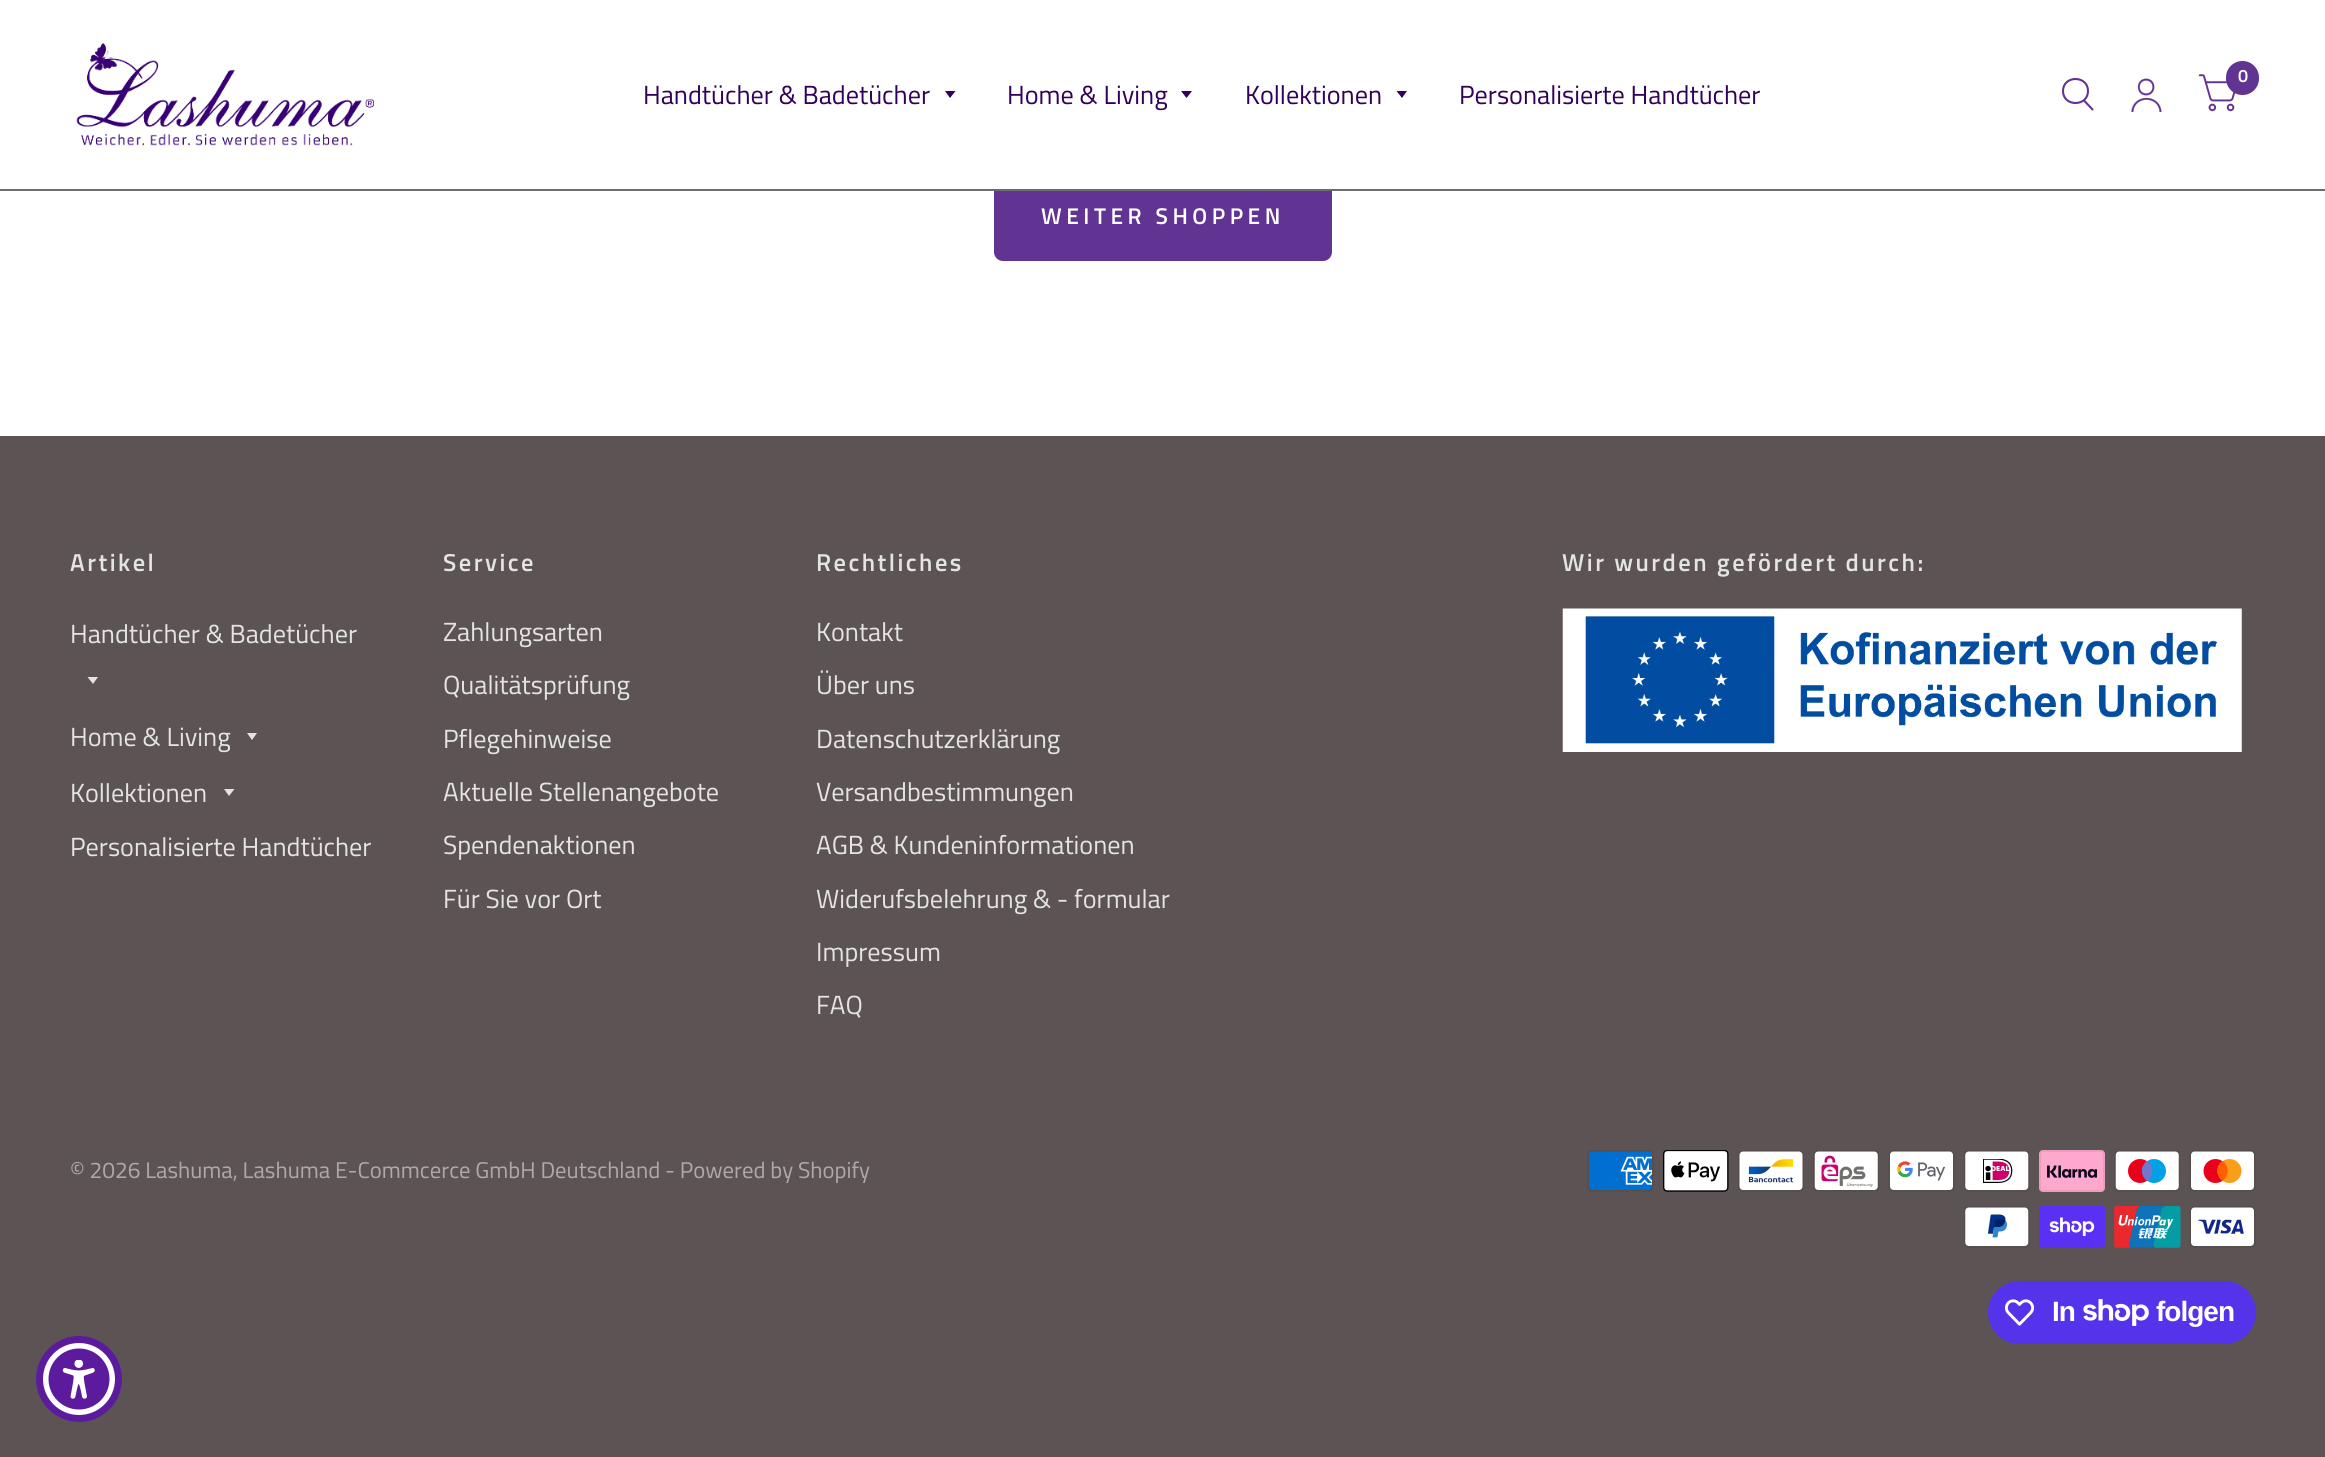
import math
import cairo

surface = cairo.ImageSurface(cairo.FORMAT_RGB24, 2325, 1457)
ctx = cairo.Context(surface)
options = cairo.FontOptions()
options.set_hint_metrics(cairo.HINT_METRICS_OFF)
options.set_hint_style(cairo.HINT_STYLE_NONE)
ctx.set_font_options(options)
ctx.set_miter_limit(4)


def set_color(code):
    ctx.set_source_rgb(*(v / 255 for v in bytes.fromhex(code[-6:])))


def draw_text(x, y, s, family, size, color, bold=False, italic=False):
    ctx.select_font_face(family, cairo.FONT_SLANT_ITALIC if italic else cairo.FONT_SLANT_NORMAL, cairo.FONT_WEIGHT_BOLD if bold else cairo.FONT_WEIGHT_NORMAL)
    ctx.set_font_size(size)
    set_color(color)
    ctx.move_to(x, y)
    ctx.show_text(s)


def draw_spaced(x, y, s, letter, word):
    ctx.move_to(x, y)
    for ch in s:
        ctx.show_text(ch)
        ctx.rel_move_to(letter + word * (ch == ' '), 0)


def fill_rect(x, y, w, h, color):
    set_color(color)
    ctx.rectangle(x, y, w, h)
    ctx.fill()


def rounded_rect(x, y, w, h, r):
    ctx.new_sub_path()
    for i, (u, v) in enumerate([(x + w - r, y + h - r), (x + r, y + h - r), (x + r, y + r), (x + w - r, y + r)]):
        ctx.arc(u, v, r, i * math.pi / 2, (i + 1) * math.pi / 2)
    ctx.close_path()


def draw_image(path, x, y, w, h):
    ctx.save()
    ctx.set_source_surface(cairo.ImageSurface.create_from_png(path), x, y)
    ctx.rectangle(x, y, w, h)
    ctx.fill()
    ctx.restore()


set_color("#ffffff")
ctx.paint()
set_color("#613493")
rounded_rect(994, 170, 338, 91, 9)
ctx.fill()
fill_rect(994, 170, 338, 19, "#ffffff")
fill_rect(0, 189, 2325, 2, "#6e6d6e")
draw_image("assets/img1.png", 76, 43, 299, 103)
ctx.new_path()
ctx.move_to(2084, 100.5)
ctx.line_to(2092.5, 109.5)
ctx.move_to(2088, 91)
ctx.curve_to(2088, 107, 2063, 107, 2063, 91)
ctx.curve_to(2063, 75, 2088, 75, 2088, 91)
ctx.close_path()
set_color("#613493")
ctx.set_line_width(2.1)
ctx.set_line_cap(cairo.LINE_CAP_ROUND)
ctx.set_line_join(cairo.LINE_JOIN_ROUND)
ctx.stroke()
draw_image("assets/img2.png", 2131, 78, 31, 35)
draw_image("assets/img3.png", 2198, 74, 37, 38)
rounded_rect(2226, 61, 33, 34, 16.5)
ctx.fill()
draw_text(2238, 82, "0", "Titillium Web SemiBold", 18, "#ffffff")
draw_text(643, 104, "Handtücher & Badetücher", "Titillium Web", 26.25, "#330059")
ctx.new_path()
ctx.move_to(945, 91)
ctx.line_to(955.5, 91)
ctx.line_to(950, 98)
ctx.close_path()
ctx.fill()
draw_text(1007, 104, "Home & Living", "Titillium Web", 26.25, "#330059")
ctx.new_path()
ctx.move_to(1181, 91)
ctx.line_to(1192, 91)
ctx.line_to(1186.5, 98)
ctx.close_path()
ctx.fill()
draw_text(1245, 104, "Kollektionen", "Titillium Web", 26.25, "#330059")
ctx.new_path()
ctx.move_to(1396.5, 91)
ctx.line_to(1407, 91)
ctx.line_to(1402, 98)
ctx.close_path()
ctx.fill()
draw_text(1459, 104, "Personalisierte Handtücher", "Titillium Web", 26.25, "#330059")
ctx.select_font_face("Titillium Web SemiBold")
ctx.set_font_size(22.75)
set_color("#ffffff")
draw_spaced(1041, 224, "WEITER SHOPPEN", 4.5, 0)
fill_rect(0, 436, 2325, 1021, "#5c5454")
ctx.set_font_size(24.5)
set_color("#e4e4e4")
draw_spaced(70, 571, "Artikel", 2.45, 0)
draw_text(70, 643, "Handtücher & Badetücher", "Titillium Web", 26.25, "#e4e4e4")
ctx.new_path()
ctx.move_to(87.5, 677)
ctx.line_to(98, 677)
ctx.line_to(93, 684)
ctx.close_path()
ctx.fill()
draw_text(70, 746, "Home & Living", "Titillium Web", 26.25, "#e4e4e4")
ctx.new_path()
ctx.move_to(247, 733)
ctx.line_to(257, 733)
ctx.line_to(252, 740)
ctx.close_path()
ctx.move_to(224, 789)
ctx.line_to(234.5, 789)
ctx.line_to(229, 796)
ctx.close_path()
ctx.fill()
draw_text(70, 802, "Kollektionen", "Titillium Web", 26.25, "#e4e4e4")
draw_text(70, 856, "Personalisierte Handtücher", "Titillium Web", 26.25, "#e4e4e4")
ctx.select_font_face("Titillium Web SemiBold")
ctx.set_font_size(24.5)
draw_spaced(443, 571, "Service", 2.45, 0)
draw_text(443, 641, "Zahlungsarten", "Titillium Web", 26.25, "#e4e4e4")
draw_text(443, 694, "Qualitätsprüfung", "Titillium Web", 26.25, "#e4e4e4")
draw_text(443, 748, "Pflegehinweise", "Titillium Web", 26.25, "#e4e4e4")
draw_text(443, 801, "Aktuelle Stellenangebote", "Titillium Web", 26.25, "#e4e4e4")
draw_text(443, 854, "Spendenaktionen", "Titillium Web", 26.25, "#e4e4e4")
draw_text(443, 908, "Für Sie vor Ort", "Titillium Web", 26.25, "#e4e4e4")
ctx.select_font_face("Titillium Web SemiBold")
ctx.set_font_size(24.5)
draw_spaced(816, 571, "Rechtliches", 2.45, 0)
draw_text(816, 641, "Kontakt", "Titillium Web", 26.25, "#e4e4e4")
draw_text(816, 694, "Über uns", "Titillium Web", 26.25, "#e4e4e4")
draw_text(816, 748, "Datenschutzerklärung", "Titillium Web", 26.25, "#e4e4e4")
draw_text(816, 801, "Versandbestimmungen", "Titillium Web", 26.25, "#e4e4e4")
draw_text(816, 854, "AGB & Kundeninformationen", "Titillium Web", 26.25, "#e4e4e4")
draw_text(816, 908, "Widerufsbelehrung & - formular", "Titillium Web", 26.25, "#e4e4e4")
draw_text(816, 961, "Impressum", "Titillium Web", 26.25, "#e4e4e4")
draw_text(816, 1014, "FAQ", "Titillium Web", 26.25, "#e4e4e4")
ctx.select_font_face("Titillium Web SemiBold")
ctx.set_font_size(24.5)
draw_spaced(1562, 571, "Wir wurden gefördert durch:", 2.45, 0)
draw_image("assets/img4.png", 1562, 608, 680, 144)
ctx.select_font_face("Titillium Web")
ctx.set_font_size(22.75)
set_color("#aeaaaa")
draw_spaced(70, 1178, "© 2026 Lashuma, Lashuma E-Commcerce GmbH Deutschland - Powered by Shopify", 0, -0.25)
draw_image("assets/img5.png", 1587, 1150, 67, 42)
draw_image("assets/img6.png", 1663, 1150, 66, 42)
draw_image("assets/img7.png", 1738, 1150, 66, 42)
draw_image("assets/img8.png", 1813, 1150, 66, 42)
draw_image("assets/img9.png", 1888, 1150, 67, 42)
draw_image("assets/img10.png", 1964, 1150, 66, 42)
draw_image("assets/img11.png", 2039, 1150, 66, 42)
draw_image("assets/img12.png", 2114, 1150, 66, 42)
draw_image("assets/img13.png", 2189, 1150, 67, 42)
draw_image("assets/img14.png", 1964, 1206, 66, 42)
draw_image("assets/img15.png", 2039, 1206, 66, 42)
draw_image("assets/img16.png", 2114, 1206, 67, 42)
draw_image("assets/img17.png", 2189, 1206, 67, 42)
set_color("#5433eb")
rounded_rect(1988, 1281, 268, 63, 31.5)
ctx.fill()
draw_image("assets/img18.png", 2004, 1299, 31, 27)
ctx.select_font_face("Liberation Sans", cairo.FONT_SLANT_NORMAL, cairo.FONT_WEIGHT_BOLD)
ctx.set_font_size(28)
set_color("#ffffff")
draw_spaced(2052, 1321, "In", -1, 0)
draw_image("assets/img19.png", 2083, 1299, 66, 27)
draw_spaced(2156, 1321, "folgen", -1, 0)
set_color("#5c1b9d")
ctx.new_path()
ctx.arc(79, 1379, 43, 0, 2 * math.pi)
ctx.fill()
set_color("#ffffff")
ctx.arc(79, 1379, 36, 0, 2 * math.pi)
ctx.fill()
set_color("#5c1b9d")
ctx.arc(79, 1379, 30.5, 0, 2 * math.pi)
ctx.fill()
draw_image("assets/img20.png", 62, 1360, 33, 39)
surface.write_to_png("output.png")
